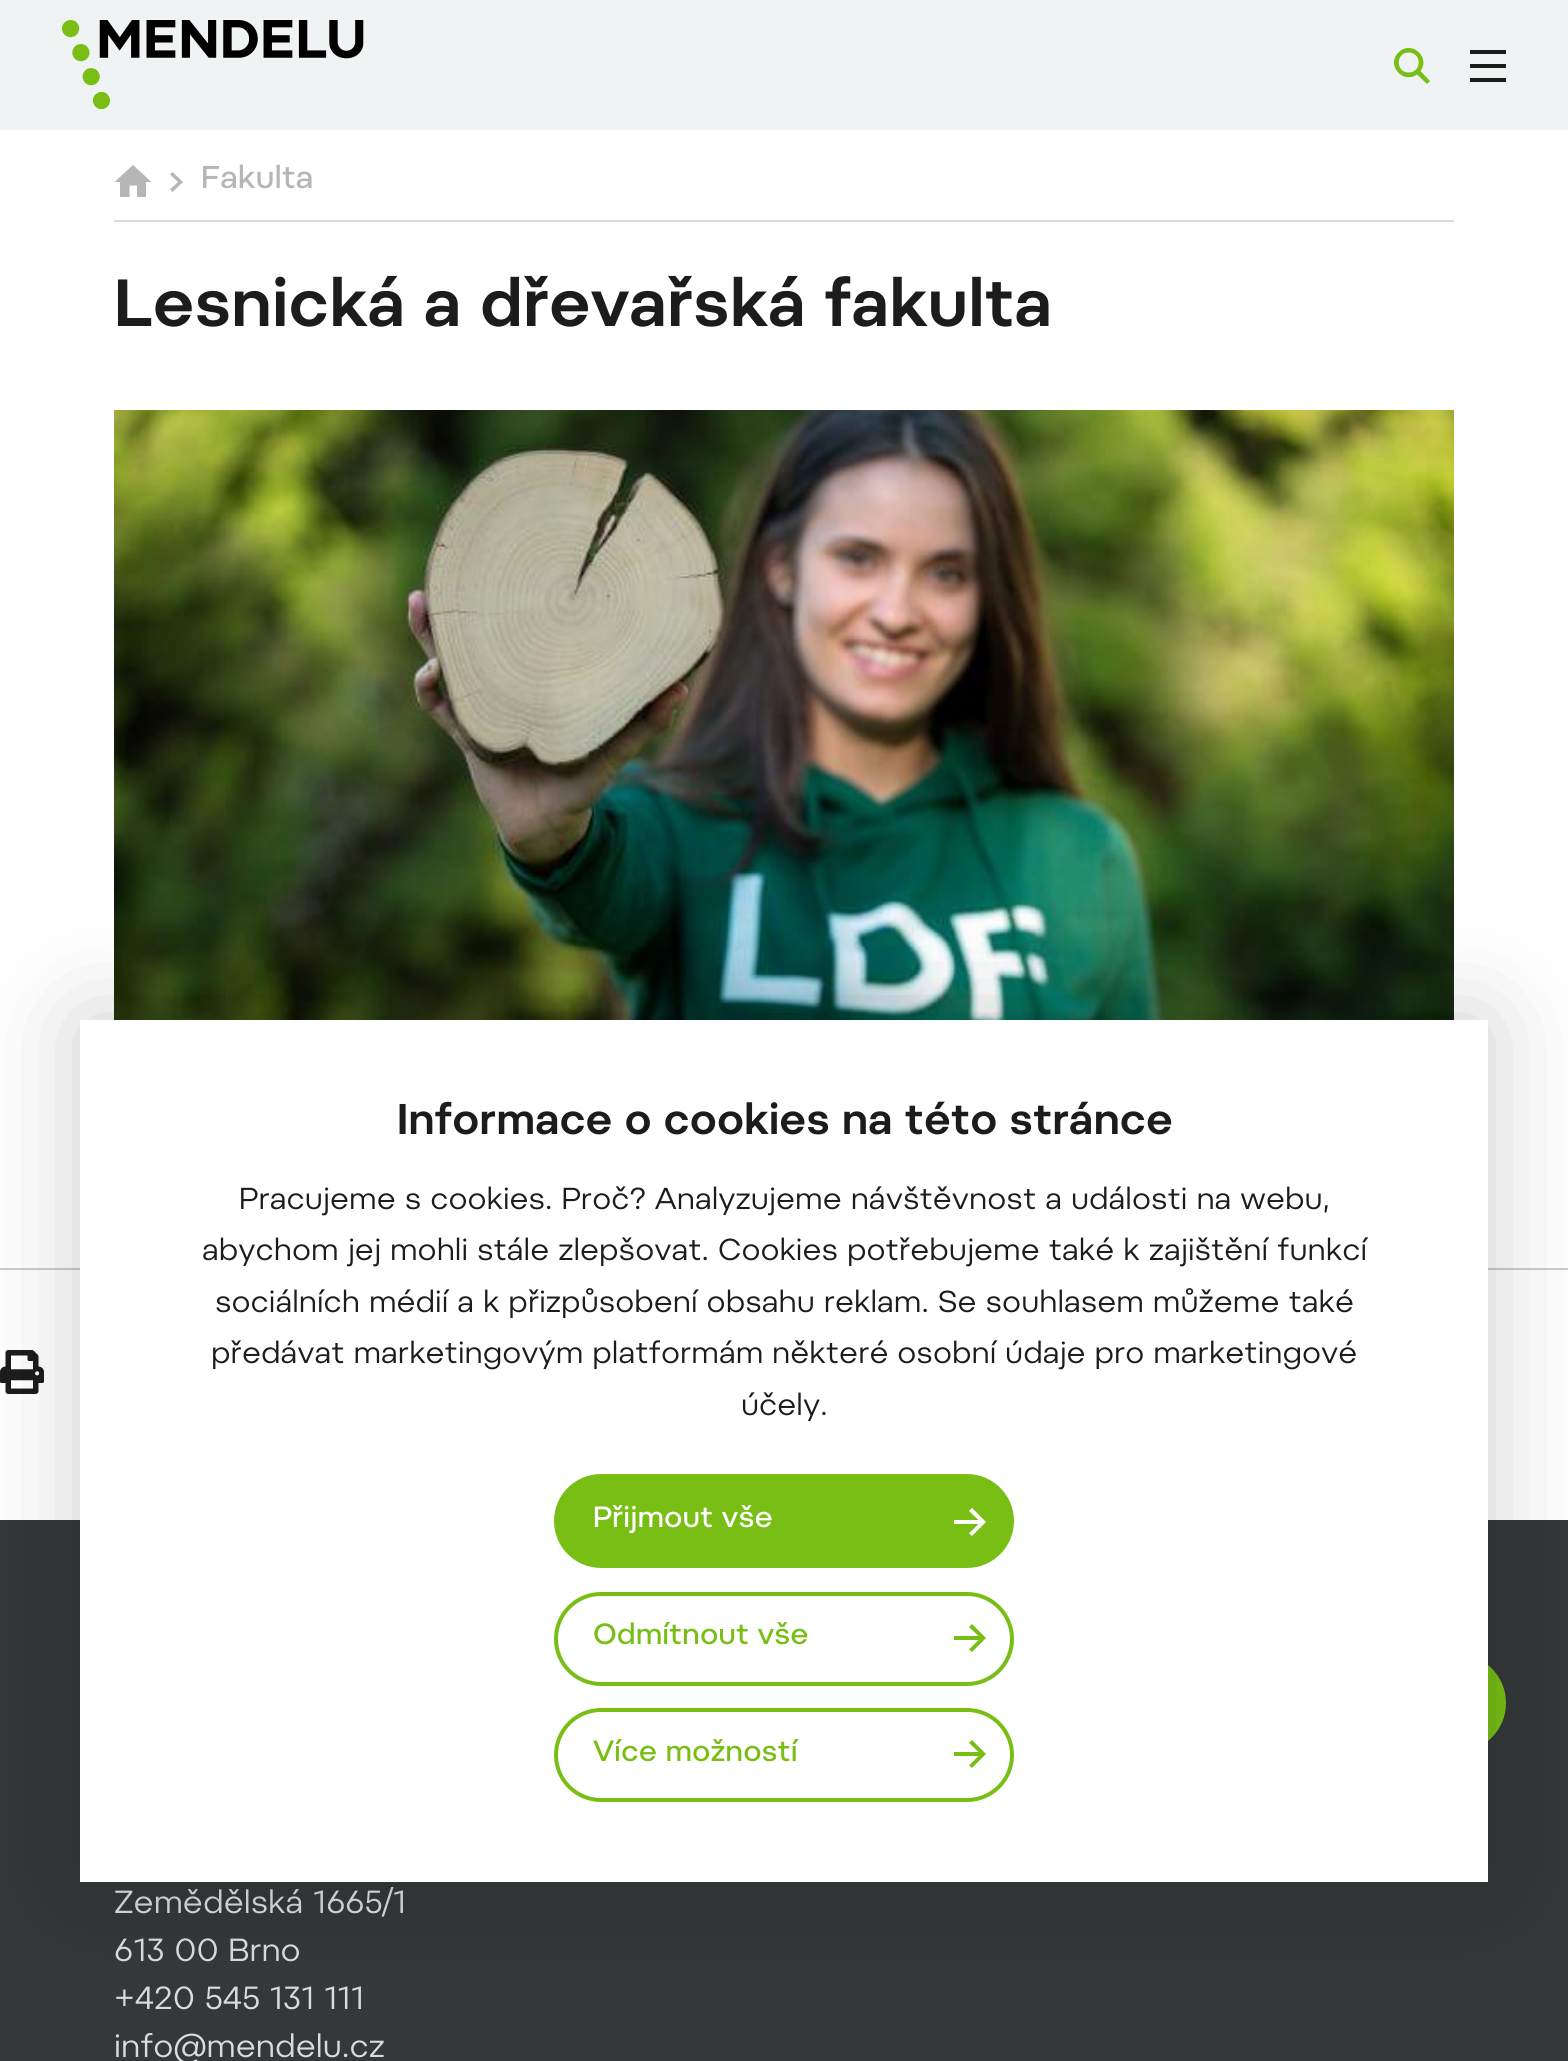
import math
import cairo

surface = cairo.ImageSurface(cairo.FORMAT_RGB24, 1568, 2061)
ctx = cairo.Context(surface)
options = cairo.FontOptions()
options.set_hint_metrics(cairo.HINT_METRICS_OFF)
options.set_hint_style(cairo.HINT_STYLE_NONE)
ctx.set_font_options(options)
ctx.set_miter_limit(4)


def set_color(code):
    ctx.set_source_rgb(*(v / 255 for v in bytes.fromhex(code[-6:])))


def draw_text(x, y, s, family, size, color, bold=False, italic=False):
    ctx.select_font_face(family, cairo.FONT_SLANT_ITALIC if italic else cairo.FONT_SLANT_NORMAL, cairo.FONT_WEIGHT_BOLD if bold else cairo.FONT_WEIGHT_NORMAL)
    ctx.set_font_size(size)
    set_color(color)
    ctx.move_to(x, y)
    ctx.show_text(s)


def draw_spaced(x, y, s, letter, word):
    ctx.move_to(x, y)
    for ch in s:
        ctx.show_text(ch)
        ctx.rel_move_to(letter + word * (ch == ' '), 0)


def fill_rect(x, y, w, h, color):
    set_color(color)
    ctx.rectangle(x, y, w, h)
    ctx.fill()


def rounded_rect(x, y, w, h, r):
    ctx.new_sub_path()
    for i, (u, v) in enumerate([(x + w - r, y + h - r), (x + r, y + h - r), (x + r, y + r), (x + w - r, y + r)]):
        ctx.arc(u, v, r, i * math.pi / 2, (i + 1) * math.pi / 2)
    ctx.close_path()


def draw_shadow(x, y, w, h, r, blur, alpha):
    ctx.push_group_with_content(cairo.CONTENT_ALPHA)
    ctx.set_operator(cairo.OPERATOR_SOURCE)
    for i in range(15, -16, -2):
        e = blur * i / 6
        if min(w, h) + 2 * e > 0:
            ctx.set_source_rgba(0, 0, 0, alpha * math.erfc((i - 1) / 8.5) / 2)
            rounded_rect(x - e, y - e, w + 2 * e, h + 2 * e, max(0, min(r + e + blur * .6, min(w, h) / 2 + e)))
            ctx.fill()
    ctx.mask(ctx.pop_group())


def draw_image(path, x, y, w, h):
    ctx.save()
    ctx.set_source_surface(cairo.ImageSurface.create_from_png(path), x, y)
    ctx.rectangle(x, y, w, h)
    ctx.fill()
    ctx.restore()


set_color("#ffffff")
ctx.paint()
fill_rect(0, 0, 1568, 130, "#eff3f4")
draw_image("assets/img1.png", 62, 20, 302, 90)
set_color("#79be15")
ctx.new_path()
ctx.move_to(1420.5, 71)
ctx.curve_to(1431, 57, 1411, 39.5, 1398.5, 52.5)
ctx.curve_to(1385.5, 65, 1403, 84.5, 1417, 74.5)
ctx.line_to(1427, 84)
ctx.line_to(1430, 81)
ctx.close_path()
ctx.move_to(1408.5, 72.5)
ctx.curve_to(1395.5, 72.5, 1395.5, 52.5, 1408.5, 52.5)
ctx.curve_to(1422, 52.5, 1422, 72.5, 1408.5, 72.5)
ctx.close_path()
ctx.fill()
fill_rect(1470, 50, 36, 4, "#1c1c1c")
fill_rect(1470, 64, 36, 4, "#1c1c1c")
fill_rect(1470, 78, 36, 4, "#1c1c1c")
fill_rect(114, 220, 1340, 2, "#dbdbdb")
set_color("#b6b6b6")
ctx.new_path()
ctx.move_to(129.5, 197)
ctx.line_to(129.5, 185.5)
ctx.line_to(137, 185.5)
ctx.line_to(137, 197)
ctx.line_to(146, 197)
ctx.line_to(146, 182)
ctx.line_to(151.5, 182)
ctx.line_to(133, 165)
ctx.line_to(114.5, 182)
ctx.line_to(120, 182)
ctx.line_to(120, 197)
ctx.close_path()
ctx.fill()
ctx.new_path()
ctx.move_to(170, 174.5)
ctx.line_to(178, 182)
ctx.line_to(170, 189.5)
ctx.line_to(172.5, 192)
ctx.line_to(183, 182)
ctx.line_to(172.5, 172)
ctx.close_path()
ctx.fill()
draw_text(201, 188, "Fakulta", "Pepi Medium", 31.5, "#b6b6b6")
draw_text(114, 326, "Lesnická a dřevařská fakulta", "Pepi SemiBold", 66.5, "#1c1c1c")
draw_image("assets/img2.png", 114, 410, 1340, 610)
fill_rect(0, 1268, 1568, 2, "#cccccc")
draw_image("assets/img3.png", 0, 1350, 44, 44)
fill_rect(0, 1520, 1568, 541, "#343839")
set_color("#79be15")
rounded_rect(1406, 1654, 100, 98, 49)
ctx.fill()
draw_text(114, 1913, "Zemědělská 1665/1", "Pepi", 32, "#d9dbe1")
draw_text(114, 1961, "613 00 Brno", "Pepi", 32, "#d9dbe1")
draw_text(114, 2009, "+420 545 131 111", "Pepi", 32, "#d9dbe1")
draw_text(114, 2057, "info@mendelu.cz", "Pepi", 32, "#d9dbe1")
set_color("#000000")
draw_shadow(80, 1020, 1408, 862, 0, 50, 0.2)
fill_rect(80, 1020, 1408, 862, "#ffffff")
draw_text(397, 1134, "Informace o cookies na této stránce", "Pepi SemiBold", 42.9, "#1c1c1c")
ctx.select_font_face("Pepi")
ctx.set_font_size(30.3)
draw_spaced(239, 1209, "Pracujeme s cookies. Proč? Analyzujeme návštěvnost a události na webu,", 0, -0.1)
draw_spaced(202, 1260, "abychom jej mohli stále zlepšovat. Cookies potřebujeme také k zajištění funkcí", 0, -0.1)
draw_spaced(215, 1312, "sociálních médií a k přizpůsobení obsahu reklam. Se souhlasem můžeme také", 0, -0.1)
draw_spaced(211, 1363, "předávat marketingovým platformám některé osobní údaje pro marketingové", 0, -0.25)
draw_text(741, 1415, "účely.", "Pepi", 30.3, "#1c1c1c")
set_color("#79be15")
rounded_rect(556, 1476, 456, 90, 45)
ctx.fill_preserve()
ctx.set_line_width(4)
ctx.stroke()
draw_text(593, 1527, "Přijmout vše", "Pepi Medium", 29.25, "#ffffff")
ctx.new_path()
ctx.move_to(969, 1533.5)
ctx.line_to(978.5, 1524)
ctx.line_to(954, 1524)
ctx.line_to(954, 1520)
ctx.line_to(978.5, 1520)
ctx.line_to(969, 1511)
ctx.line_to(972, 1508)
ctx.line_to(986, 1522)
ctx.line_to(972, 1536)
ctx.close_path()
ctx.fill()
rounded_rect(556, 1594, 456, 90, 45)
set_color("#79be15")
ctx.stroke()
draw_text(593, 1644, "Odmítnout vše", "Pepi Medium", 29.25, "#79be15")
ctx.new_path()
ctx.move_to(969, 1649.5)
ctx.line_to(978.5, 1640)
ctx.line_to(954, 1640)
ctx.line_to(954, 1636)
ctx.line_to(978.5, 1636)
ctx.line_to(969, 1627)
ctx.line_to(972, 1624)
ctx.line_to(986, 1638)
ctx.line_to(972, 1652)
ctx.close_path()
ctx.fill()
rounded_rect(556, 1710, 456, 90, 45)
ctx.stroke()
draw_text(593, 1761, "Více možností", "Pepi Medium", 29.25, "#79be15")
ctx.new_path()
ctx.move_to(969, 1765.5)
ctx.line_to(978.5, 1756)
ctx.line_to(954, 1756)
ctx.line_to(954, 1752)
ctx.line_to(978.5, 1752)
ctx.line_to(969, 1743)
ctx.line_to(972, 1740)
ctx.line_to(986, 1754)
ctx.line_to(972, 1768)
ctx.close_path()
ctx.fill()
surface.write_to_png("output.png")
